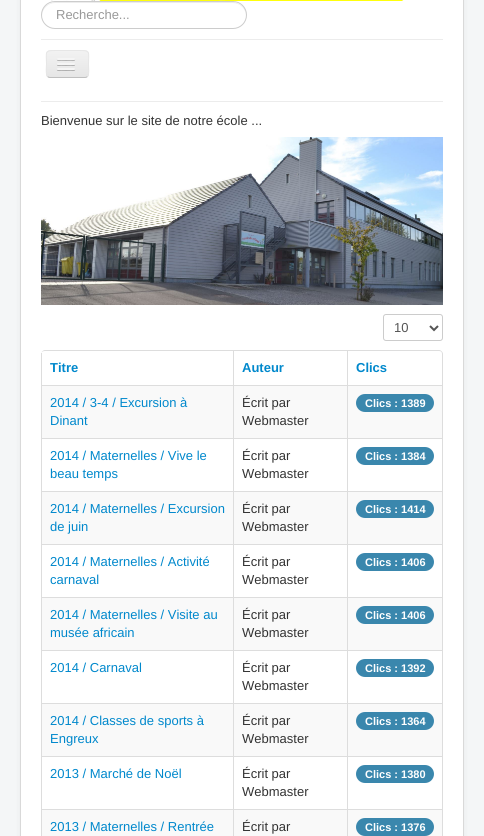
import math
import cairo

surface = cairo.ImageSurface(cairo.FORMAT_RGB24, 484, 836)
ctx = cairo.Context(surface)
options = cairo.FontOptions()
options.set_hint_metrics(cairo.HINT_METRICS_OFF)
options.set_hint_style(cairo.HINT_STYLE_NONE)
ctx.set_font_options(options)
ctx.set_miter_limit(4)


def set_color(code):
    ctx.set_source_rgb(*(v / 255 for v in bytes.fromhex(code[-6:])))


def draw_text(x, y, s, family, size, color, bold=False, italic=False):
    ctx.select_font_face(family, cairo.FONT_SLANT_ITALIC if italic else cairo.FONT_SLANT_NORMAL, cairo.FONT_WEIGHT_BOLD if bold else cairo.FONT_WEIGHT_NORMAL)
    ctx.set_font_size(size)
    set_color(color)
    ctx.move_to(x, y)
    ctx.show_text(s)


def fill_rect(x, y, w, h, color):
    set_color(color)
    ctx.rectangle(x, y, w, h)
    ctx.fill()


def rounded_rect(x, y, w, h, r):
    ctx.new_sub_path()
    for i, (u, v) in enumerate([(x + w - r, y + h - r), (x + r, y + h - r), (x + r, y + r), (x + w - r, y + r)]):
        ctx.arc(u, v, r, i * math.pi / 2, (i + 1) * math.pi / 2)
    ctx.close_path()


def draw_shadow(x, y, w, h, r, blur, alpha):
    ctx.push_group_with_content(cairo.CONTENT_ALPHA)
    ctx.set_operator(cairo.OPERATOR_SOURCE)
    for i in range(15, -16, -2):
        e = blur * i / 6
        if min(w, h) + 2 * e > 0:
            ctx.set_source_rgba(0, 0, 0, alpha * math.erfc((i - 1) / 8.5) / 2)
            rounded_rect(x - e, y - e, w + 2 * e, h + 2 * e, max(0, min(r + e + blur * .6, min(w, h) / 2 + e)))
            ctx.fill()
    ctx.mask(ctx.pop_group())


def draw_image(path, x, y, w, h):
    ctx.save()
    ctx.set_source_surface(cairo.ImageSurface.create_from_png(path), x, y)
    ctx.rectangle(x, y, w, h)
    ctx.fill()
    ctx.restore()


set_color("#f4f6f7")
ctx.paint()
set_color("#000000")
draw_shadow(20, -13, 444, 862, 4, 3, 0.05)
set_color("#ffffff")
ctx.rectangle(20.5, -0.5, 443, 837)
ctx.fill_preserve()
set_color("#d9d9d9")
ctx.set_line_width(1)
ctx.stroke()
draw_image("assets/img1.png", 51, 0, 353, 1)
set_color("#ececec")
ctx.new_path()
ctx.move_to(55, 3)
ctx.line_to(233, 3)
ctx.curve_to(240, 3, 246, 9, 246, 16)
ctx.curve_to(247, -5, 211, 2, 203, 2)
ctx.line_to(85, 2)
ctx.curve_to(77, 2, 41, -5, 42, 16)
ctx.curve_to(42, 9, 48, 3, 55, 3)
ctx.close_path()
ctx.fill()
rounded_rect(41.5, 1.5, 205, 27, 13.5)
set_color("#cccccc")
ctx.stroke()
draw_text(56, 19, "Recherche...", "Liberation Sans", 13, "#999999")
fill_rect(41, 39, 402, 1, "#ececec")
fill_rect(41, 101, 402, 1, "#ececec")
set_color("#ededed")
rounded_rect(46, 50, 43, 28, 4)
ctx.fill()
ctx.save()
rounded_rect(46, 50, 43, 28, 4)
ctx.clip()
gradient = cairo.LinearGradient(68, 51, 68, 77)
gradient.add_color_stop_rgba(0, 0.949, 0.949, 0.949, 1)
gradient.add_color_stop_rgba(1, 0.902, 0.902, 0.902, 1)
ctx.set_source(gradient)
ctx.rectangle(46, 51, 43, 26)
ctx.fill()
ctx.restore()
ctx.new_path()
ctx.move_to(87.5, 76.5)
ctx.curve_to(87, 77, 86, 77.5, 85, 77.5)
ctx.line_to(50, 77.5)
ctx.curve_to(49, 77.5, 48, 77, 47.5, 76.5)
set_color("#bfbfbf")
ctx.stroke()
ctx.new_path()
ctx.move_to(47.5, 76.5)
ctx.curve_to(45.5, 74, 46.5, 66.5, 46.5, 64)
ctx.curve_to(46.5, 52, 44, 50.5, 56, 50.5)
ctx.line_to(79, 50.5)
ctx.curve_to(91, 50.5, 88.5, 52, 88.5, 64)
ctx.curve_to(88.5, 66.5, 89.5, 74, 87.5, 76.5)
set_color("#e6e6e6")
ctx.stroke()
set_color("#b3b3b3")
ctx.new_path()
ctx.move_to(57, 59.5)
ctx.curve_to(56, 61.5, 60.5, 61, 60.5, 61)
ctx.line_to(71.5, 61)
ctx.curve_to(71.5, 61, 76, 61.5, 75, 59.5)
ctx.curve_to(74, 60.5, 67.5, 60, 66, 60)
ctx.curve_to(64.5, 60, 58, 60.5, 57, 59.5)
ctx.close_path()
ctx.fill()
set_color("#f5f5f5")
rounded_rect(57, 58, 18, 2, 1)
ctx.fill()
set_color("#b0b0b0")
ctx.new_path()
ctx.move_to(57, 64.5)
ctx.curve_to(56, 66.5, 60.5, 66, 60.5, 66)
ctx.line_to(71.5, 66)
ctx.curve_to(71.5, 66, 76, 66.5, 75, 64.5)
ctx.curve_to(74, 65.5, 67.5, 65, 66, 65)
ctx.curve_to(64.5, 65, 58, 65.5, 57, 64.5)
ctx.close_path()
ctx.fill()
set_color("#f5f5f5")
rounded_rect(57, 63, 18, 2, 1)
ctx.fill()
set_color("#afafaf")
ctx.new_path()
ctx.move_to(57, 69.5)
ctx.curve_to(56, 71.5, 60.5, 71, 60.5, 71)
ctx.line_to(71.5, 71)
ctx.curve_to(71.5, 71, 76, 71.5, 75, 69.5)
ctx.curve_to(74, 70.5, 67.5, 70, 66, 70)
ctx.curve_to(64.5, 70, 58, 70.5, 57, 69.5)
ctx.close_path()
ctx.fill()
set_color("#f5f5f5")
rounded_rect(57, 68, 18, 2, 1)
ctx.fill()
draw_text(41, 125, "Bienvenue sur le site de notre école ...", "Liberation Sans", 13, "#333333")
draw_image("assets/img2.png", 41, 137, 402, 168)
rounded_rect(383.5, 314.5, 59, 26, 2.5)
set_color("#cccccc")
ctx.stroke()
ctx.new_path()
ctx.move_to(430, 326)
ctx.line_to(434, 330)
ctx.line_to(438, 326)
set_color("#555555")
ctx.set_line_width(2)
ctx.stroke()
draw_text(394, 332, "10", "Liberation Sans", 13, "#555555")
set_color("#dddddd")
ctx.set_fill_rule(cairo.FILL_RULE_EVEN_ODD)
ctx.new_path()
ctx.move_to(45, 350)
ctx.line_to(439, 350)
ctx.curve_to(441, 350, 443, 352, 443, 354)
ctx.line_to(443, 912)
ctx.curve_to(443, 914, 441, 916, 439, 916)
ctx.line_to(45, 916)
ctx.curve_to(43, 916, 41, 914, 41, 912)
ctx.line_to(41, 354)
ctx.curve_to(41, 352, 43, 350, 45, 350)
ctx.close_path()
ctx.move_to(45, 351)
ctx.line_to(439, 351)
ctx.curve_to(441, 351, 442, 352, 442, 354)
ctx.line_to(442, 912)
ctx.curve_to(442, 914, 441, 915, 439, 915)
ctx.line_to(45, 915)
ctx.curve_to(43, 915, 41, 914, 41, 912)
ctx.line_to(41, 354)
ctx.curve_to(41, 352, 43, 351, 45, 351)
ctx.close_path()
ctx.fill()
fill_rect(41, 353, 1, 32, "#dddddd")
draw_text(50, 372, "Titre", "Liberation Sans", 13, "#0088cc", bold=True)
fill_rect(233, 351, 1, 34, "#dddddd")
draw_text(242, 372, "Auteur", "Liberation Sans", 13, "#0088cc", bold=True)
fill_rect(347, 351, 1, 34, "#dddddd")
draw_text(356, 372, "Clics", "Liberation Sans", 13, "#0088cc", bold=True)
fill_rect(42, 386, 191, 52, "#f9f9f9")
fill_rect(41, 385, 401, 1, "#dddddd")
fill_rect(41, 385, 1, 53, "#dddddd")
draw_text(50, 407, "2014 / 3-4 / Excursion à", "Liberation Sans", 13, "#0088cc")
draw_text(50, 425, "Dinant", "Liberation Sans", 13, "#0088cc")
fill_rect(234, 386, 113, 52, "#f9f9f9")
fill_rect(233, 385, 1, 53, "#dddddd")
draw_text(242, 407, "Écrit par", "Liberation Sans", 13, "#333333")
draw_text(242, 425, "Webmaster", "Liberation Sans", 13, "#333333")
fill_rect(348, 386, 94, 52, "#f9f9f9")
fill_rect(347, 385, 1, 53, "#dddddd")
set_color("#3a87ad")
rounded_rect(356, 394, 78, 18, 9)
ctx.fill()
draw_text(365, 407, "Clics : 1389", "Liberation Sans", 11, "#ffffff", bold=True)
fill_rect(41, 438, 401, 1, "#dddddd")
fill_rect(41, 438, 1, 53, "#dddddd")
draw_text(50, 460, "2014 / Maternelles / Vive le", "Liberation Sans", 13, "#0088cc")
draw_text(50, 478, "beau temps", "Liberation Sans", 13, "#0088cc")
fill_rect(233, 438, 1, 53, "#dddddd")
draw_text(242, 460, "Écrit par", "Liberation Sans", 13, "#333333")
draw_text(242, 478, "Webmaster", "Liberation Sans", 13, "#333333")
fill_rect(347, 438, 1, 53, "#dddddd")
set_color("#3a87ad")
rounded_rect(356, 447, 78, 18, 9)
ctx.fill()
draw_text(365, 460, "Clics : 1384", "Liberation Sans", 11, "#ffffff", bold=True)
fill_rect(42, 492, 191, 52, "#f9f9f9")
fill_rect(41, 491, 401, 1, "#dddddd")
fill_rect(41, 491, 1, 53, "#dddddd")
draw_text(50, 513, "2014 / Maternelles / Excursion", "Liberation Sans", 13, "#0088cc")
draw_text(50, 531, "de juin", "Liberation Sans", 13, "#0088cc")
fill_rect(234, 492, 113, 52, "#f9f9f9")
fill_rect(233, 491, 1, 53, "#dddddd")
draw_text(242, 513, "Écrit par", "Liberation Sans", 13, "#333333")
draw_text(242, 531, "Webmaster", "Liberation Sans", 13, "#333333")
fill_rect(348, 492, 94, 52, "#f9f9f9")
fill_rect(347, 491, 1, 53, "#dddddd")
set_color("#3a87ad")
rounded_rect(356, 500, 78, 18, 9)
ctx.fill()
draw_text(365, 513, "Clics : 1414", "Liberation Sans", 11, "#ffffff", bold=True)
fill_rect(41, 544, 401, 1, "#dddddd")
fill_rect(41, 544, 1, 53, "#dddddd")
draw_text(50, 566, "2014 / Maternelles / Activité", "Liberation Sans", 13, "#0088cc")
draw_text(50, 584, "carnaval", "Liberation Sans", 13, "#0088cc")
fill_rect(233, 544, 1, 53, "#dddddd")
draw_text(242, 566, "Écrit par", "Liberation Sans", 13, "#333333")
draw_text(242, 584, "Webmaster", "Liberation Sans", 13, "#333333")
fill_rect(347, 544, 1, 53, "#dddddd")
set_color("#3a87ad")
rounded_rect(356, 553, 78, 18, 9)
ctx.fill()
draw_text(365, 566, "Clics : 1406", "Liberation Sans", 11, "#ffffff", bold=True)
fill_rect(42, 598, 191, 52, "#f9f9f9")
fill_rect(41, 597, 401, 1, "#dddddd")
fill_rect(41, 597, 1, 53, "#dddddd")
draw_text(50, 619, "2014 / Maternelles / Visite au", "Liberation Sans", 13, "#0088cc")
draw_text(50, 637, "musée africain", "Liberation Sans", 13, "#0088cc")
fill_rect(234, 598, 113, 52, "#f9f9f9")
fill_rect(233, 597, 1, 53, "#dddddd")
draw_text(242, 619, "Écrit par", "Liberation Sans", 13, "#333333")
draw_text(242, 637, "Webmaster", "Liberation Sans", 13, "#333333")
fill_rect(348, 598, 94, 52, "#f9f9f9")
fill_rect(347, 597, 1, 53, "#dddddd")
set_color("#3a87ad")
rounded_rect(356, 606, 78, 18, 9)
ctx.fill()
draw_text(365, 619, "Clics : 1406", "Liberation Sans", 11, "#ffffff", bold=True)
fill_rect(41, 650, 401, 1, "#dddddd")
fill_rect(41, 650, 1, 53, "#dddddd")
draw_text(50, 672, "2014 / Carnaval", "Liberation Sans", 13, "#0088cc")
fill_rect(233, 650, 1, 53, "#dddddd")
draw_text(242, 672, "Écrit par", "Liberation Sans", 13, "#333333")
draw_text(242, 690, "Webmaster", "Liberation Sans", 13, "#333333")
fill_rect(347, 650, 1, 53, "#dddddd")
set_color("#3a87ad")
rounded_rect(356, 659, 78, 18, 9)
ctx.fill()
draw_text(365, 672, "Clics : 1392", "Liberation Sans", 11, "#ffffff", bold=True)
fill_rect(42, 704, 191, 52, "#f9f9f9")
fill_rect(41, 703, 401, 1, "#dddddd")
fill_rect(41, 703, 1, 53, "#dddddd")
draw_text(50, 725, "2014 / Classes de sports à", "Liberation Sans", 13, "#0088cc")
draw_text(50, 743, "Engreux", "Liberation Sans", 13, "#0088cc")
fill_rect(234, 704, 113, 52, "#f9f9f9")
fill_rect(233, 703, 1, 53, "#dddddd")
draw_text(242, 725, "Écrit par", "Liberation Sans", 13, "#333333")
draw_text(242, 743, "Webmaster", "Liberation Sans", 13, "#333333")
fill_rect(348, 704, 94, 52, "#f9f9f9")
fill_rect(347, 703, 1, 53, "#dddddd")
set_color("#3a87ad")
rounded_rect(356, 712, 78, 18, 9)
ctx.fill()
draw_text(365, 725, "Clics : 1364", "Liberation Sans", 11, "#ffffff", bold=True)
fill_rect(41, 756, 401, 1, "#dddddd")
fill_rect(41, 756, 1, 53, "#dddddd")
draw_text(50, 778, "2013 / Marché de Noël", "Liberation Sans", 13, "#0088cc")
fill_rect(233, 756, 1, 53, "#dddddd")
draw_text(242, 778, "Écrit par", "Liberation Sans", 13, "#333333")
draw_text(242, 796, "Webmaster", "Liberation Sans", 13, "#333333")
fill_rect(347, 756, 1, 53, "#dddddd")
set_color("#3a87ad")
rounded_rect(356, 765, 78, 18, 9)
ctx.fill()
draw_text(365, 778, "Clics : 1380", "Liberation Sans", 11, "#ffffff", bold=True)
fill_rect(42, 810, 191, 26, "#f9f9f9")
fill_rect(41, 809, 401, 1, "#dddddd")
fill_rect(41, 809, 1, 27, "#dddddd")
draw_text(50, 831, "2013 / Maternelles / Rentrée", "Liberation Sans", 13, "#0088cc")
fill_rect(234, 810, 113, 26, "#f9f9f9")
fill_rect(233, 809, 1, 27, "#dddddd")
draw_text(242, 831, "Écrit par", "Liberation Sans", 13, "#333333")
fill_rect(348, 810, 94, 26, "#f9f9f9")
fill_rect(347, 809, 1, 27, "#dddddd")
set_color("#3a87ad")
rounded_rect(356, 818, 78, 18, 9)
ctx.fill()
draw_text(365, 831, "Clics : 1376", "Liberation Sans", 11, "#ffffff", bold=True)
surface.write_to_png("output.png")
